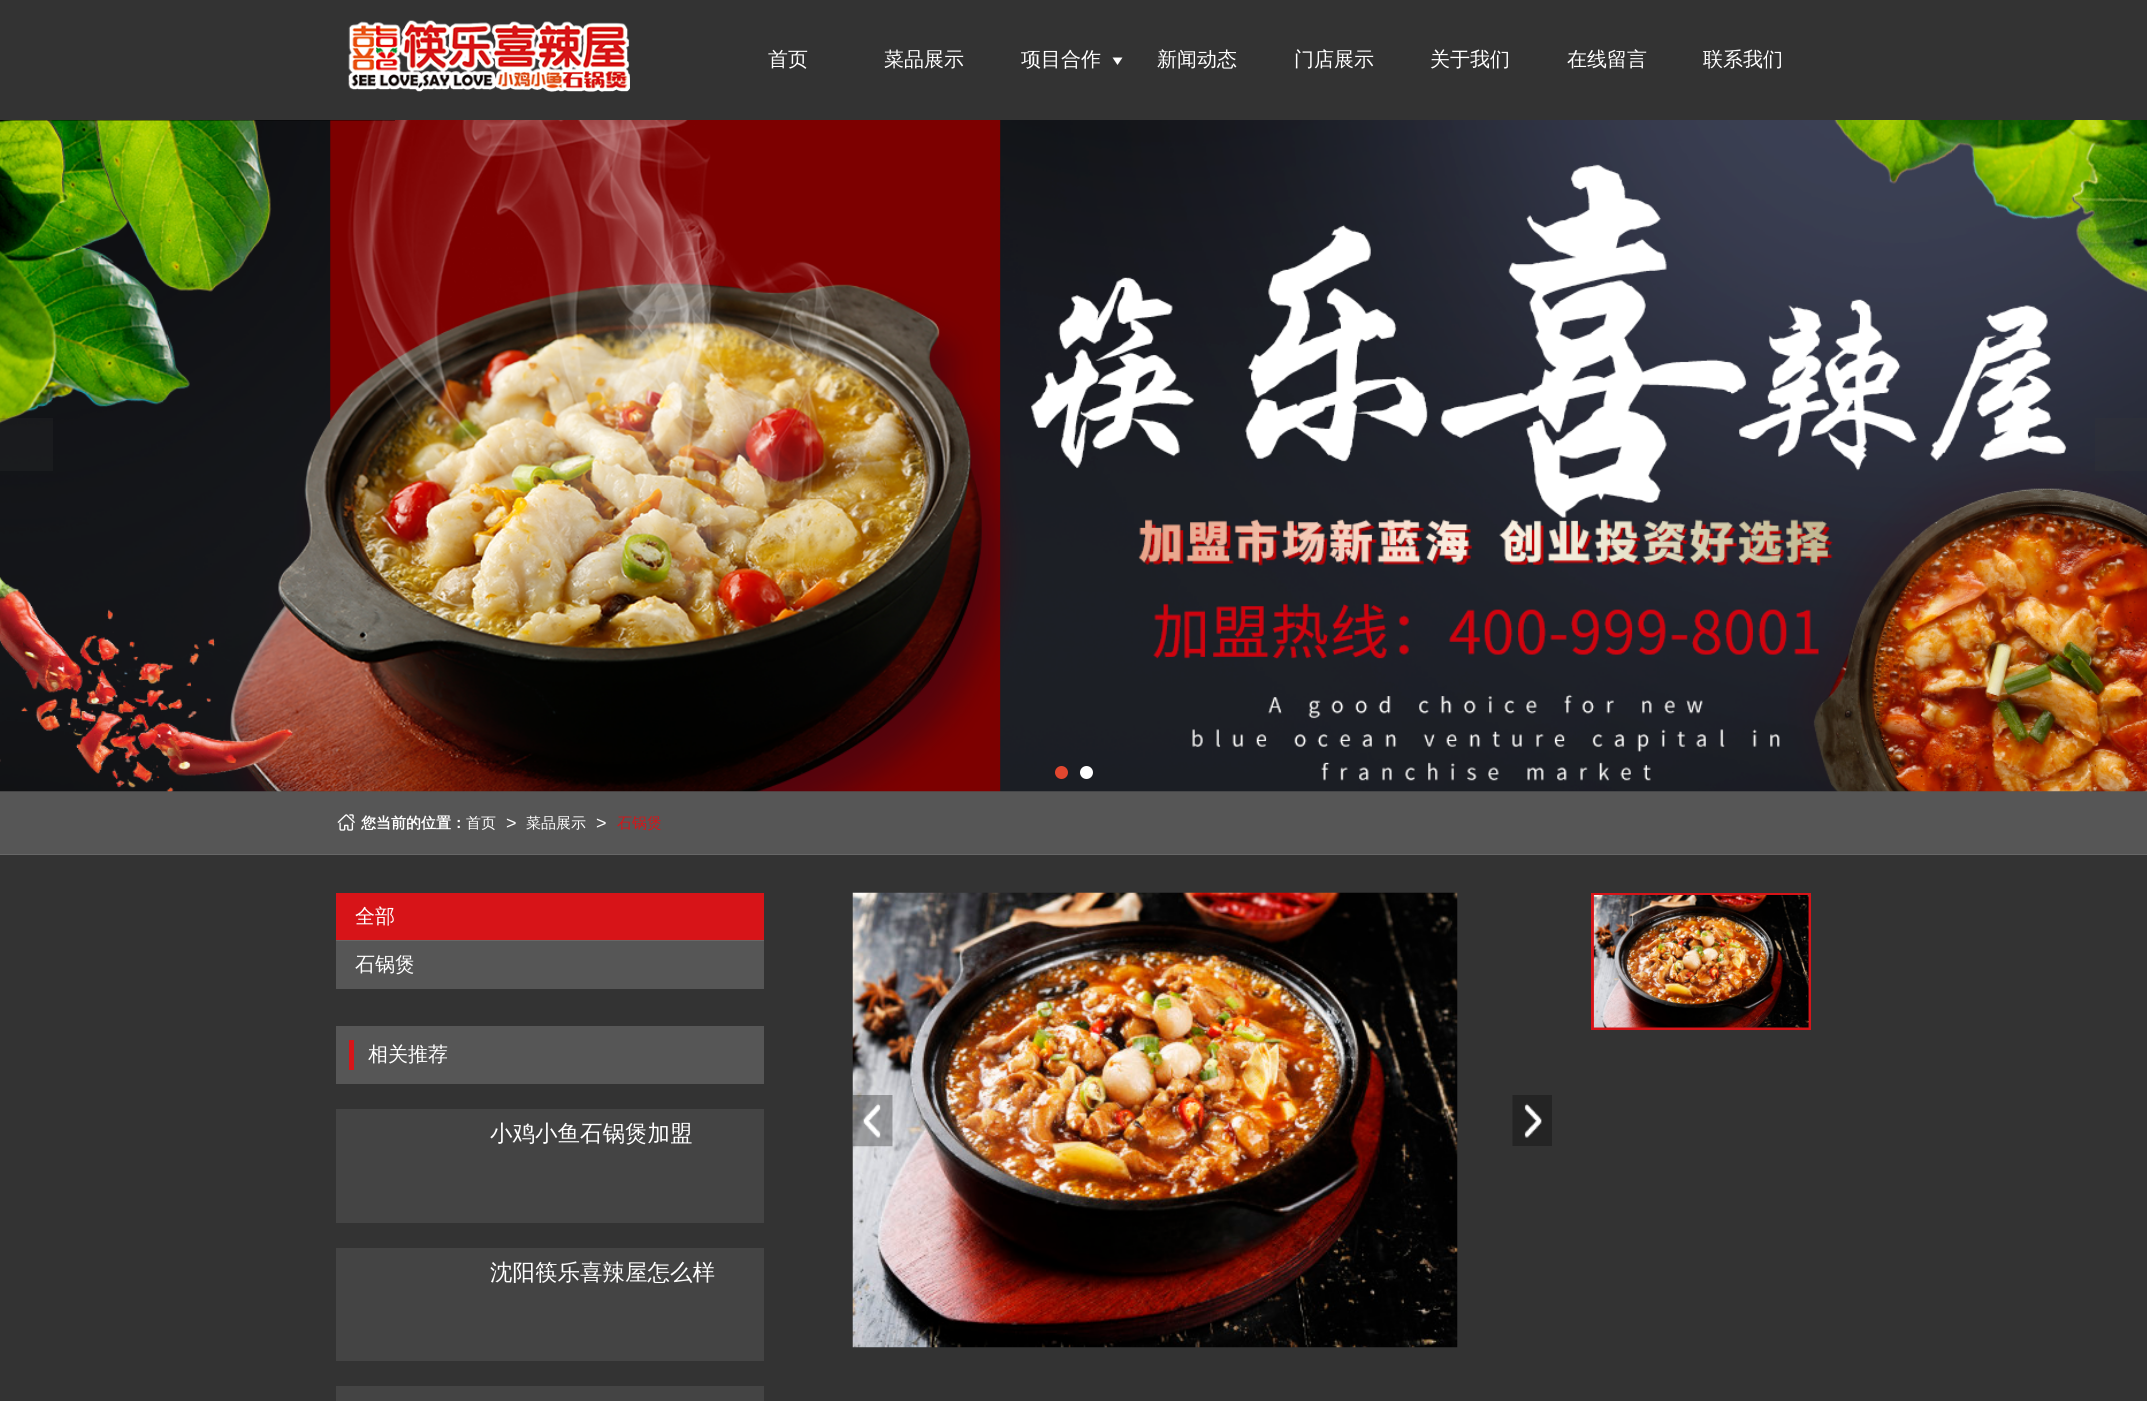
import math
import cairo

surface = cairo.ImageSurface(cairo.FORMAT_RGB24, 2147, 1401)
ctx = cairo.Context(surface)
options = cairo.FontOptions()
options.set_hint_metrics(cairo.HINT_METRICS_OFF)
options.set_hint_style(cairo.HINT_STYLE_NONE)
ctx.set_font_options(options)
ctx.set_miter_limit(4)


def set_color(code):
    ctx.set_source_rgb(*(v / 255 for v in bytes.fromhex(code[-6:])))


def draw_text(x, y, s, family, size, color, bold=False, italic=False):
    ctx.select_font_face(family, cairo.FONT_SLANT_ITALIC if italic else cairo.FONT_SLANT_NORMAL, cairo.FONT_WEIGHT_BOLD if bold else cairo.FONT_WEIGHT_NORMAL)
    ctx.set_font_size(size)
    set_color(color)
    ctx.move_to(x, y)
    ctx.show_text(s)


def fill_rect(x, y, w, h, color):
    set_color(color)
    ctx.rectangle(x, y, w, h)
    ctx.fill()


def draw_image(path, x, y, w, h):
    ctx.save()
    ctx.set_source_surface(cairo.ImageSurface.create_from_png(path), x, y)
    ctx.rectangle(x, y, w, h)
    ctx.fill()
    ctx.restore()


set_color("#333333")
ctx.paint()
draw_image("assets/img1.png", 348, 20, 282, 72)
draw_text(768, 66, "首页", "WenQuanYi Zen Hei Medium", 20, "#ffffff")
draw_text(884, 66, "菜品展示", "WenQuanYi Zen Hei Medium", 20, "#ffffff")
draw_text(1021, 66, "项目合作", "WenQuanYi Zen Hei Medium", 20, "#ffffff")
ctx.new_path()
ctx.move_to(1112.5, 57.5)
ctx.line_to(1122.5, 57.5)
ctx.line_to(1117.5, 65)
ctx.close_path()
ctx.fill()
draw_text(1157, 66, "新闻动态", "WenQuanYi Zen Hei Medium", 20, "#ffffff")
draw_text(1294, 66, "门店展示", "WenQuanYi Zen Hei Medium", 20, "#ffffff")
draw_text(1430, 66, "关于我们", "WenQuanYi Zen Hei Medium", 20, "#ffffff")
draw_text(1567, 66, "在线留言", "WenQuanYi Zen Hei Medium", 20, "#ffffff")
draw_text(1703, 66, "联系我们", "WenQuanYi Zen Hei Medium", 20, "#ffffff")
fill_rect(0, 791, 2147, 63, "#565656")
draw_image("assets/img2.png", 0, 120, 2147, 672)
ctx.set_source_rgba(0, 0, 0, 0.4)
ctx.rectangle(0, 120, 395, 1)
ctx.fill()
ctx.set_source_rgba(0.224, 0.224, 0.224, 0.2)
ctx.rectangle(0, 418, 53, 53)
ctx.fill()
ctx.rectangle(2095, 418, 52, 53)
ctx.fill()
set_color("#e1472f")
ctx.arc(1061.5, 772.5, 6.5, 0, 2 * math.pi)
ctx.fill()
set_color("#ffffff")
ctx.arc(1086.5, 772.5, 6.5, 0, 2 * math.pi)
ctx.fill()
fill_rect(0, 854, 2147, 1, "#676767")
draw_image("assets/img3.png", 337, 814, 18, 17)
draw_text(361, 828, "您当前的位置：", "WenQuanYi Zen Hei", 15, "#ffffff", bold=True)
draw_text(466, 828, "首页", "WenQuanYi Zen Hei Medium", 15, "#ffffff")
draw_text(506, 829, ">", "Liberation Sans", 18, "#ffffff")
draw_text(526, 828, "菜品展示", "WenQuanYi Zen Hei Medium", 15, "#ffffff")
draw_text(596, 829, ">", "Liberation Sans", 18, "#ffffff")
draw_text(617, 828, "石锅煲", "WenQuanYi Zen Hei Medium", 15, "#d71418")
fill_rect(336, 940, 428, 1, "#676767")
fill_rect(336, 893, 428, 47, "#d71418")
draw_text(355, 923, "全部", "WenQuanYi Zen Hei Medium", 20, "#ffffff")
fill_rect(336, 941, 428, 48, "#565656")
draw_text(355, 971, "石锅煲", "WenQuanYi Zen Hei Medium", 20, "#ffffff")
fill_rect(336, 1026, 428, 58, "#565656")
fill_rect(349, 1040, 5, 30, "#d71418")
draw_text(368, 1061, "相关推荐", "WenQuanYi Zen Hei Medium", 20, "#ffffff")
fill_rect(336, 1109, 428, 114, "#444444")
draw_text(490, 1141, "小鸡小鱼石锅煲加盟", "WenQuanYi Zen Hei Medium", 22.5, "#ffffff")
fill_rect(336, 1248, 428, 113, "#444444")
draw_text(490, 1280, "沈阳筷乐喜辣屋怎么样", "WenQuanYi Zen Hei Medium", 22.5, "#ffffff")
fill_rect(336, 1386, 428, 15, "#444444")
draw_image("assets/img4.png", 852, 892, 606, 456)
draw_image("assets/img5.png", 852, 1095, 41, 52)
draw_image("assets/img6.png", 1512, 1095, 40, 51)
ctx.rectangle(1592.5, 894.5, 217, 134)
set_color("#d71418")
ctx.set_line_width(3)
ctx.stroke()
draw_image("assets/img7.png", 1593, 895, 216, 133)
surface.write_to_png("output.png")
